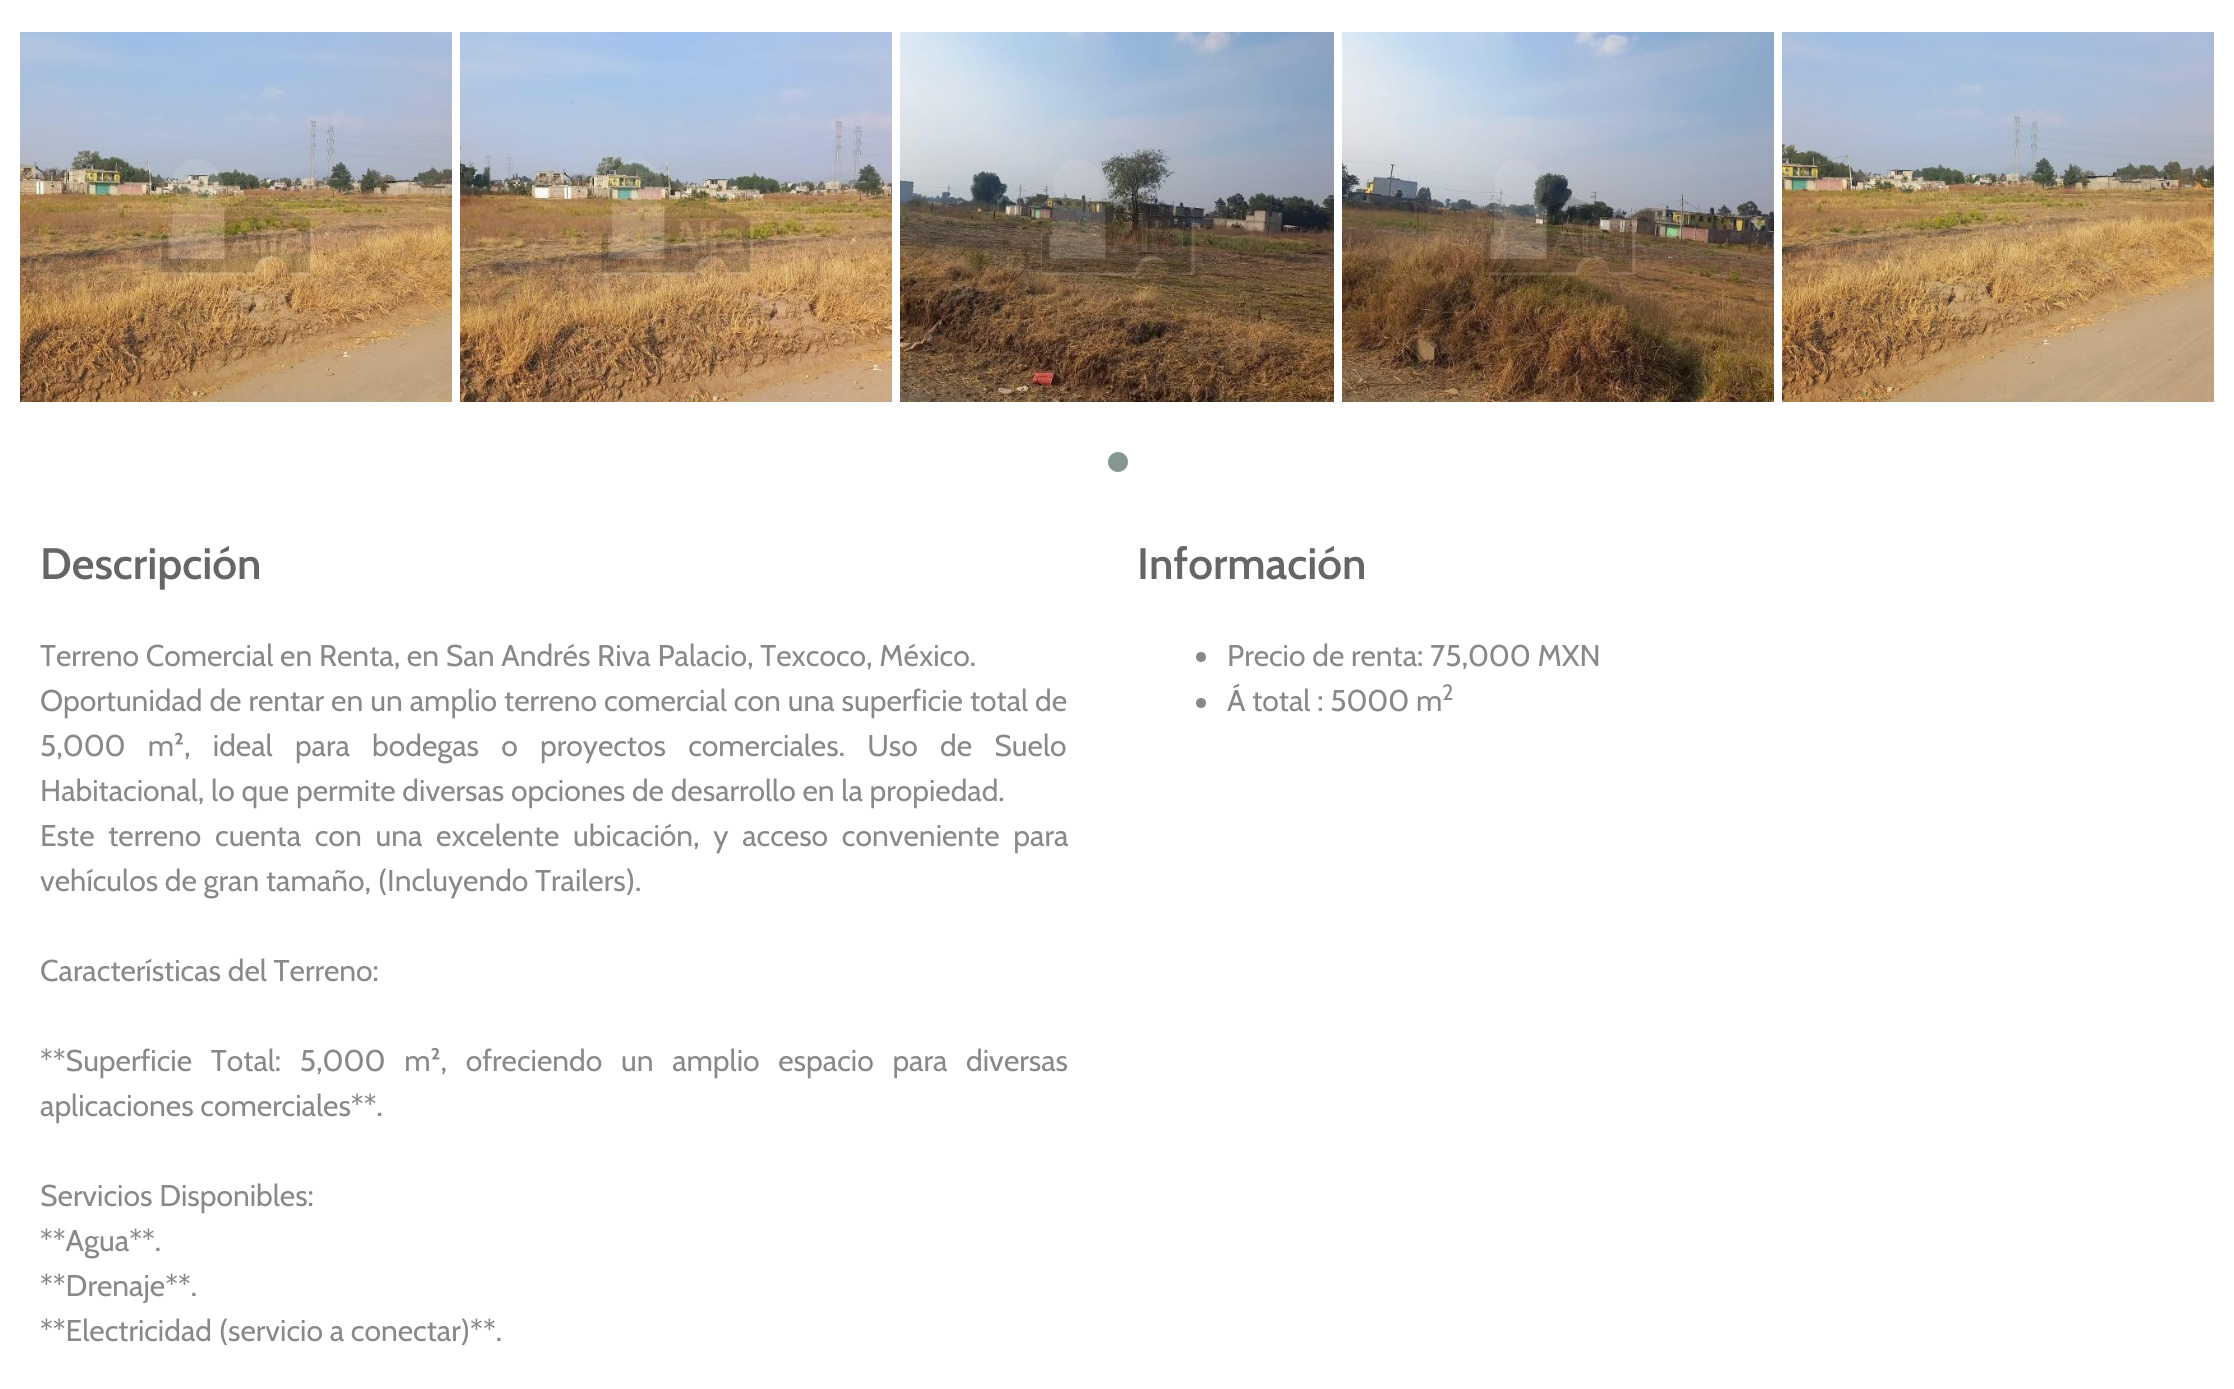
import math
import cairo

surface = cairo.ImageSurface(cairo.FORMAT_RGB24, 2234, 1389)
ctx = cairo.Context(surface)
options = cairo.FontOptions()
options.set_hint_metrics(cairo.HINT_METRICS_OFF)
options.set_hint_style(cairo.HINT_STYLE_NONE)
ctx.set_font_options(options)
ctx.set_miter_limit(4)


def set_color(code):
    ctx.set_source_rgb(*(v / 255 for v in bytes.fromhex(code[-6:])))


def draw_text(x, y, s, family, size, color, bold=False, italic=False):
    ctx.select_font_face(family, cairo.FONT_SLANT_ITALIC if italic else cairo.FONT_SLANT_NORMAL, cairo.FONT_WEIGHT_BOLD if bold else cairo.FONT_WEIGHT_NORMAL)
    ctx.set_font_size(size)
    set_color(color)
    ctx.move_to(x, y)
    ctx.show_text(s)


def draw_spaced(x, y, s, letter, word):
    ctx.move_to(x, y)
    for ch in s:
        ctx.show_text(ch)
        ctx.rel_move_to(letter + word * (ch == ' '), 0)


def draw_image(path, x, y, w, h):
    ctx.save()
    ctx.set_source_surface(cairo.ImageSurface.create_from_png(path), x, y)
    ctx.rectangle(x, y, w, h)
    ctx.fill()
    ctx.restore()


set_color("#ffffff")
ctx.paint()
draw_image("assets/img1.png", 20, 32, 432, 370)
draw_image("assets/img2.png", 460, 32, 432, 370)
draw_image("assets/img3.png", 900, 32, 434, 370)
draw_image("assets/img4.png", 1342, 32, 432, 370)
draw_image("assets/img5.png", 1782, 32, 432, 370)
set_color("#869791")
ctx.arc(1118, 462, 10, 0, 2 * math.pi)
ctx.fill()
draw_text(40, 579, "Descripción", "Cabin SemiBold", 44, "#666666")
draw_text(40, 666, "Terreno Comercial en Renta, en San Andrés Riva Palacio, Texcoco, México.", "Cabin", 30, "#898989")
draw_spaced(40, 711, "Oportunidad de rentar en un amplio terreno comercial con una superficie total de", 0, 0.25)
draw_spaced(40, 756, "5,000 m², ideal para bodegas o proyectos comerciales. Uso de Suelo", 0, 15.5)
draw_text(40, 801, "Habitacional, lo que permite diversas opciones de desarrollo en la propiedad.", "Cabin", 30, "#898989")
draw_spaced(40, 846, "Este terreno cuenta con una excelente ubicación, y acceso conveniente para", 0, 7)
draw_text(40, 891, "vehículos de gran tamaño, (Incluyendo Trailers).", "Cabin", 30, "#898989")
draw_text(40, 981, "Características del Terreno:", "Cabin", 30, "#898989")
draw_spaced(40, 1071, "**Superficie Total: 5,000 m², ofreciendo un amplio espacio para diversas", 0, 12)
draw_text(40, 1116, "aplicaciones comerciales**.", "Cabin", 30, "#898989")
draw_text(40, 1206, "Servicios Disponibles:", "Cabin", 30, "#898989")
draw_text(40, 1251, "**Agua**.", "Cabin", 30, "#898989")
draw_text(40, 1296, "**Drenaje**.", "Cabin", 30, "#898989")
draw_text(40, 1341, "**Electricidad (servicio a conectar)**.", "Cabin", 30, "#898989")
draw_text(1137, 579, "Información", "Cabin SemiBold", 44, "#666666")
set_color("#898989")
ctx.new_path()
ctx.arc(1201, 657, 5, 0, 2 * math.pi)
ctx.fill()
draw_text(1227, 666, "Precio de renta: 75,000 MXN", "Cabin", 30, "#898989")
draw_text(1227, 711, "Á total : 5000 m", "Cabin", 30, "#898989")
draw_text(1442, 700, "2", "Cabin", 22, "#898989")
ctx.new_path()
ctx.arc(1201, 703, 5, 0, 2 * math.pi)
ctx.fill()
surface.write_to_png("output.png")
